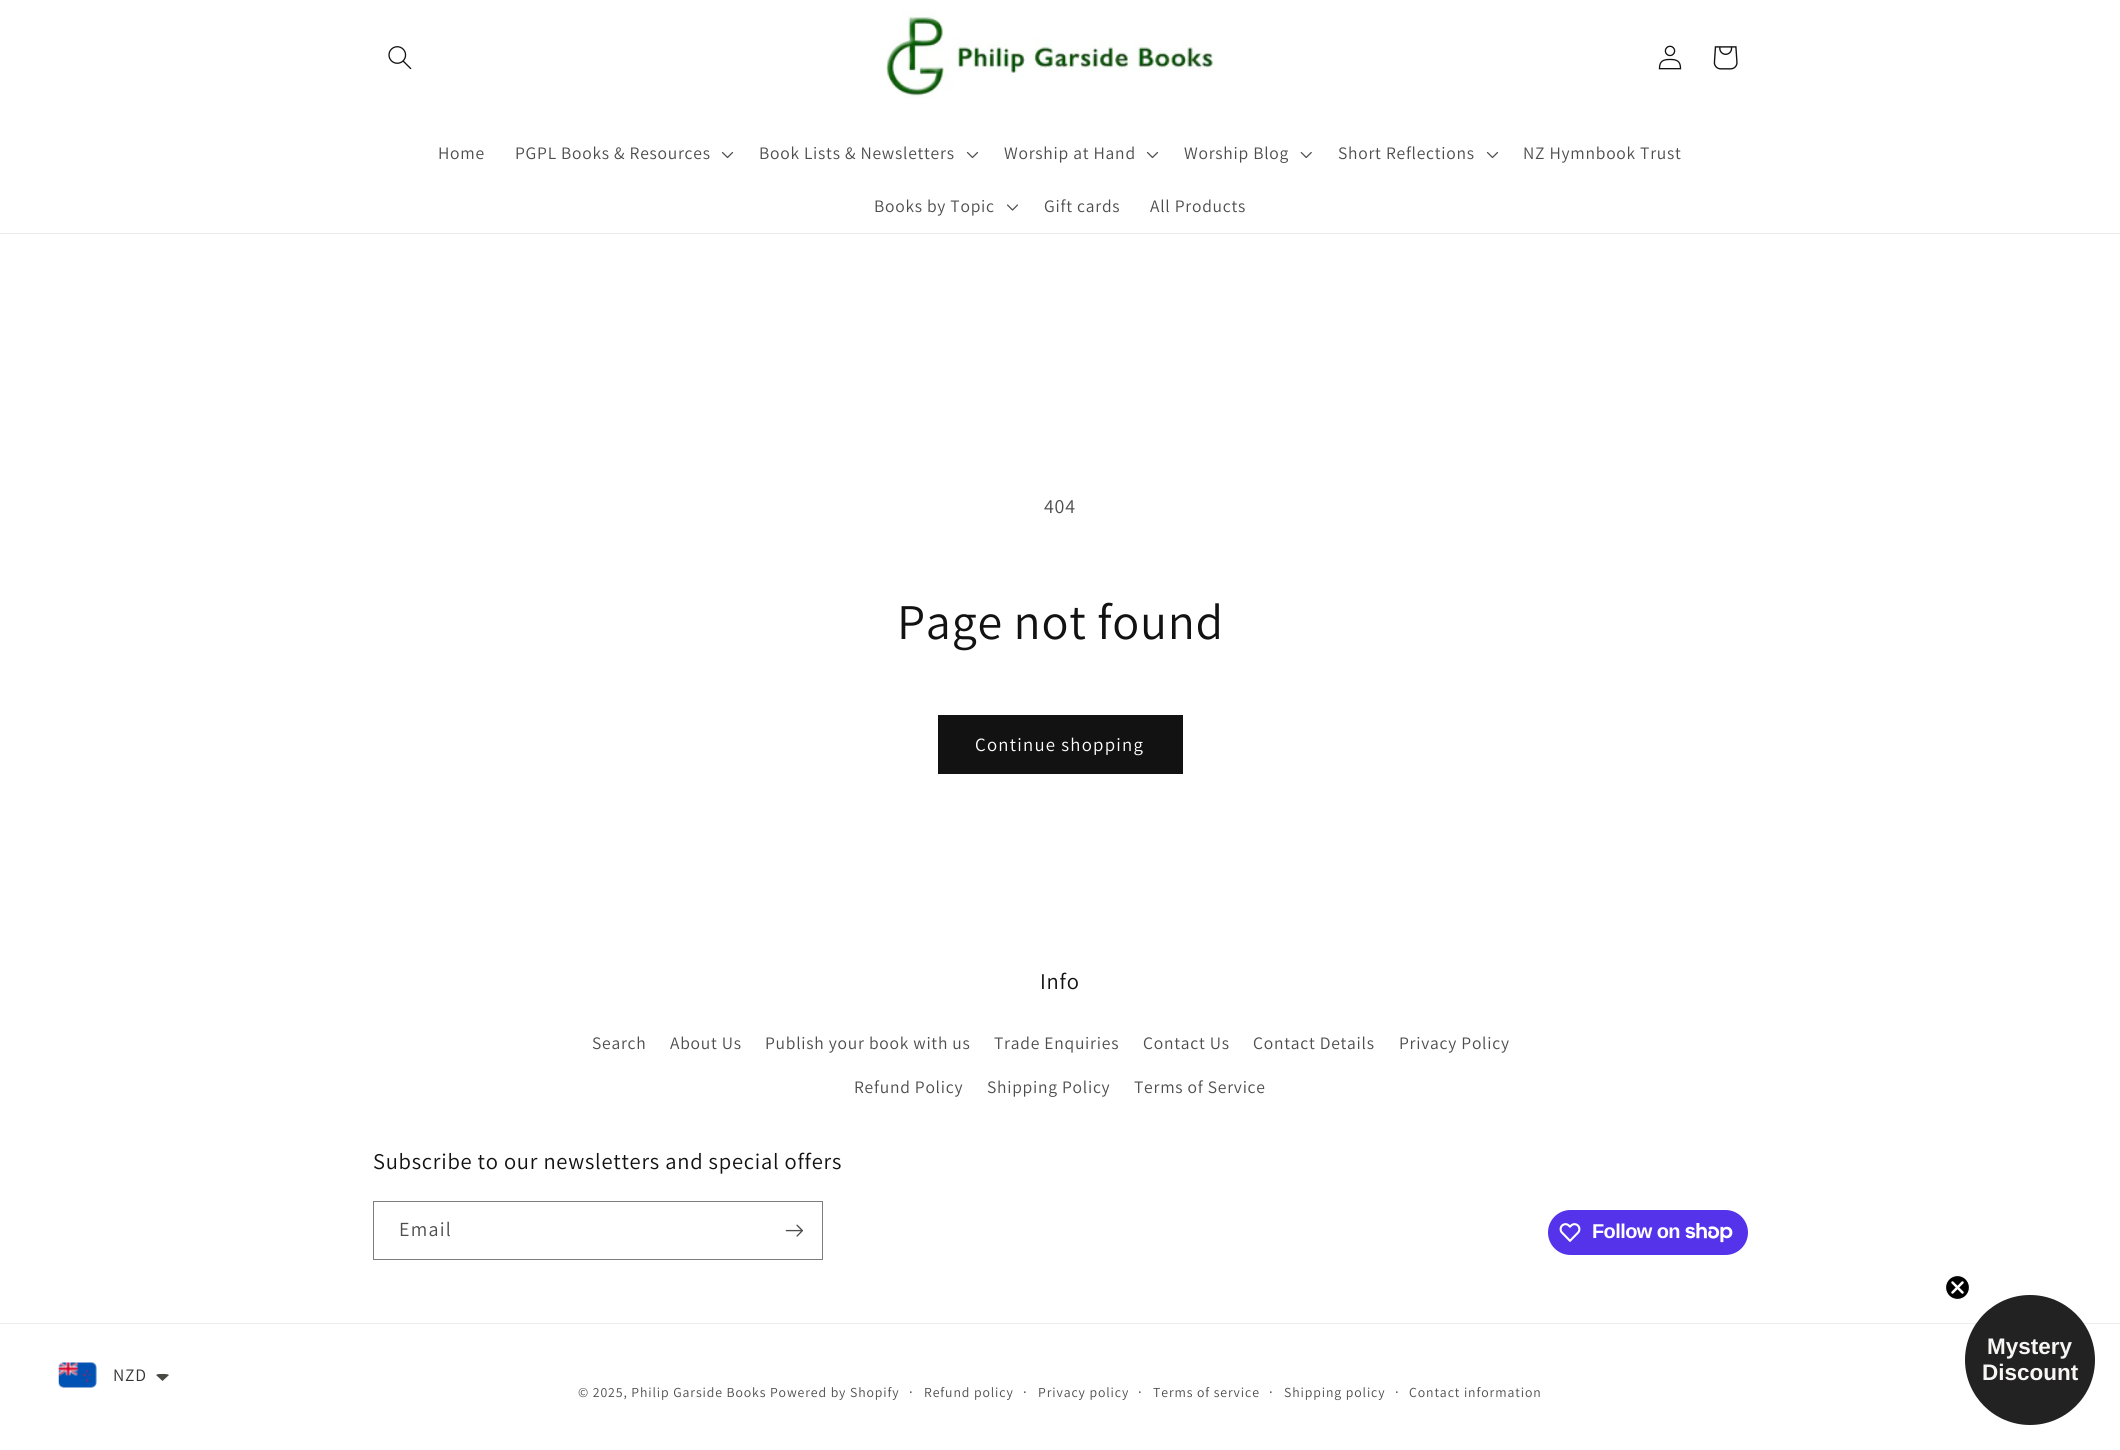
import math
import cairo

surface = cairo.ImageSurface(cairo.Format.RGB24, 2120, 1450)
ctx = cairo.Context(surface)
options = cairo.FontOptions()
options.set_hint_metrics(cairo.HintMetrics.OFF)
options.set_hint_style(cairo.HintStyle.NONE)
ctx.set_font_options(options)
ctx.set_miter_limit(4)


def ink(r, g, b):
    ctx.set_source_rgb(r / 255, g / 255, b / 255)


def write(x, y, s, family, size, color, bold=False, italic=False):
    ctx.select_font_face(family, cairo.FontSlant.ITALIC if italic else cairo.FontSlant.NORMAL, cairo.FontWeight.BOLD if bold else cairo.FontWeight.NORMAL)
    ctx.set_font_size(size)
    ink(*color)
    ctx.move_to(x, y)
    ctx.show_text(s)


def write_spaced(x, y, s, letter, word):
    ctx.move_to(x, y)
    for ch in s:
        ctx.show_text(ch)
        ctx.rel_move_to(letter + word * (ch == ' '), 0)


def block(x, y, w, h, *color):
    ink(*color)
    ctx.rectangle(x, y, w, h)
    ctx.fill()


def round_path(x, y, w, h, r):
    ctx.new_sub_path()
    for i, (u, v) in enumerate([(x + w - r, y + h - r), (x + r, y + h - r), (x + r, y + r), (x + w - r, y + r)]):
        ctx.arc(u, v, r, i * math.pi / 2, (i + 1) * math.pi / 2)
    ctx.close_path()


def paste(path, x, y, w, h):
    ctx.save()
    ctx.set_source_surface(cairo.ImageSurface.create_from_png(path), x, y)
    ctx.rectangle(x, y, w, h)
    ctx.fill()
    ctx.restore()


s1 = dict(family="Liberation Sans", size=22.5, color=(248, 245, 245), bold=True)

ink(255, 255, 255)
ctx.paint()
block(0, 233, 2120, 1, 236, 236, 236)
paste("pic1.png", 388, 46, 24, 24)
paste("pic2.png", 885, 10, 329, 89)
paste("pic3.png", 1658, 45, 24, 25)
paste("pic4.png", 1713, 46, 25, 24)
ctx.select_font_face("Assistant")
ctx.set_font_size(17.5)
ink(77, 77, 77)
write_spaced(438, 159, "Home", 0.75, 0)
write_spaced(515, 159, "PGPL Books & Resources", 0.75, 0)
paste("pic5.png", 721, 151, 13, 8)
write_spaced(759, 159, "Book Lists & Newsletters", 0.75, 0)
paste("pic5.png", 966, 151, 13, 8)
write_spaced(1004, 159, "Worship at Hand", 0.75, 0)
paste("pic5.png", 1146, 151, 13, 8)
write_spaced(1184, 159, "Worship Blog", 0.75, 0)
paste("pic6.png", 1300, 151, 12, 8)
write_spaced(1338, 159, "Short Reflections", 0.75, 0)
paste("pic5.png", 1486, 151, 13, 8)
write_spaced(1523, 159, "NZ Hymnbook Trust", 0.75, 0)
write_spaced(874, 212, "Books by Topic", 0.75, 0)
paste("pic7.png", 1007, 204, 11, 7)
write_spaced(1044, 212, "Gift cards", 0.75, 0)
write_spaced(1150, 212, "All Products", 0.75, 0)
ctx.set_font_size(20)
write_spaced(1044, 513, "404", 0.75, 0)
ctx.set_font_size(50)
ink(18, 18, 18)
write_spaced(897, 639, "Page not found", 0.75, 0)
block(938, 715, 245, 59, 18, 18, 18)
ctx.set_font_size(18.75)
ink(255, 255, 255)
write_spaced(975, 751, "Continue shopping", 1.25, 0)
paste("pic8.png", 58, 1362, 39, 26)
ctx.set_font_size(17.5)
ink(51, 51, 51)
write_spaced(113, 1381, "NZD", 0.75, 0)
ink(71, 73, 66)
ctx.new_path()
ctx.move_to(159, 1374)
ctx.curve_to(161.5, 1374, 167, 1373.5, 169, 1375)
ctx.line_to(162.5, 1381)
ctx.line_to(156, 1375)
ctx.curve_to(157, 1374.5, 158, 1374, 159, 1374)
ctx.close_path()
ctx.fill()
ctx.set_font_size(22.5)
ink(18, 18, 18)
write_spaced(1040, 989, "Info", 0.75, 0)
ctx.set_font_size(17.5)
ink(77, 77, 77)
write_spaced(592, 1049, "Search", 0.75, 0)
write_spaced(670, 1049, "About Us", 0.75, 0)
write_spaced(765, 1049, "Publish your book with us", 0.75, 0)
write_spaced(994, 1049, "Trade Enquiries", 0.75, 0)
write_spaced(1143, 1049, "Contact Us", 0.75, 0)
write_spaced(1253, 1049, "Contact Details", 0.75, 0)
write_spaced(1399, 1049, "Privacy Policy", 0.75, 0)
write_spaced(854, 1093, "Refund Policy", 0.75, 0)
write_spaced(987, 1093, "Shipping Policy", 0.75, 0)
write_spaced(1134, 1093, "Terms of Service", 0.75, 0)
ctx.set_font_size(22.5)
ink(18, 18, 18)
write_spaced(373, 1169, "Subscribe to our newsletters and special offers", 0.75, 0)
ctx.rectangle(373.5, 1201.5, 449, 58)
ink(125, 125, 125)
ctx.set_line_width(1)
ctx.stroke()
ctx.set_font_size(20)
ink(77, 77, 77)
write_spaced(399, 1236, "Email", 1.25, 0)
paste("pic9.png", 785, 1224, 18, 13)
ink(84, 51, 235)
round_path(1548, 1210, 200, 45, 22.5)
ctx.fill()
paste("pic10.png", 1559, 1223, 22, 19)
ctx.select_font_face("Liberation Sans", cairo.FontSlant.NORMAL, cairo.FontWeight.BOLD)
ink(255, 255, 255)
write_spaced(1592, 1238, "Follow on", -0.6, 0)
paste("pic11.png", 1685, 1223, 48, 20)
block(0, 1323, 2120, 1, 236, 236, 236)
ctx.select_font_face("Assistant")
ctx.set_font_size(13.75)
ink(77, 77, 77)
write_spaced(578, 1397, "© 2025, Philip Garside Books Powered by Shopify", 0.9, 0)
ctx.set_font_size(15)
write_spaced(909, 1397, "·", 0.9, 0)
ctx.set_font_size(13.75)
write_spaced(924, 1397, "Refund policy", 0.9, 0)
ctx.set_font_size(15)
write_spaced(1023, 1397, "·", 0.9, 0)
ctx.set_font_size(13.75)
write_spaced(1038, 1397, "Privacy policy", 0.9, 0)
ctx.set_font_size(15)
write_spaced(1138, 1397, "·", 0.9, 0)
ctx.set_font_size(13.75)
write_spaced(1153, 1397, "Terms of service", 0.9, 0)
ctx.set_font_size(15)
write_spaced(1269, 1397, "·", 0.9, 0)
ctx.set_font_size(13.75)
write_spaced(1284, 1397, "Shipping policy", 0.9, 0)
ctx.set_font_size(15)
write_spaced(1395, 1397, "·", 0.9, 0)
ctx.set_font_size(13.75)
write_spaced(1409, 1397, "Contact information", 0.9, 0)
ink(34, 34, 34)
ctx.new_path()
ctx.arc(2030, 1360, 65, 0, 2 * math.pi)
ctx.fill()
ink(0, 0, 0)
ctx.arc(1957.5, 1287.5, 12, 0, 2 * math.pi)
ctx.fill_preserve()
ink(255, 255, 255)
ctx.set_line_width(1.2)
ctx.stroke()
ctx.new_path()
ctx.move_to(1952.5, 1282.5)
ctx.line_to(1962.5, 1292.5)
ctx.move_to(1952.5, 1292.5)
ctx.line_to(1962.5, 1282.5)
ctx.close_path()
ctx.set_line_width(2.5)
ctx.set_line_cap(cairo.LineCap.ROUND)
ctx.set_line_join(cairo.LineJoin.ROUND)
ctx.stroke()
write(1987, 1354, "Mystery", **s1)
write(1982, 1380, "Discount", **s1)
surface.write_to_png("screenshot.png")
